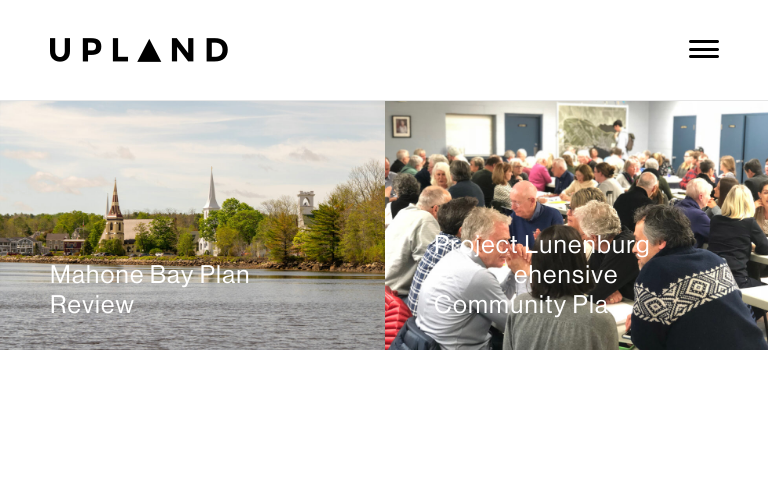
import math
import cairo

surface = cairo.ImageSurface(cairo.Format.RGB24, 768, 489)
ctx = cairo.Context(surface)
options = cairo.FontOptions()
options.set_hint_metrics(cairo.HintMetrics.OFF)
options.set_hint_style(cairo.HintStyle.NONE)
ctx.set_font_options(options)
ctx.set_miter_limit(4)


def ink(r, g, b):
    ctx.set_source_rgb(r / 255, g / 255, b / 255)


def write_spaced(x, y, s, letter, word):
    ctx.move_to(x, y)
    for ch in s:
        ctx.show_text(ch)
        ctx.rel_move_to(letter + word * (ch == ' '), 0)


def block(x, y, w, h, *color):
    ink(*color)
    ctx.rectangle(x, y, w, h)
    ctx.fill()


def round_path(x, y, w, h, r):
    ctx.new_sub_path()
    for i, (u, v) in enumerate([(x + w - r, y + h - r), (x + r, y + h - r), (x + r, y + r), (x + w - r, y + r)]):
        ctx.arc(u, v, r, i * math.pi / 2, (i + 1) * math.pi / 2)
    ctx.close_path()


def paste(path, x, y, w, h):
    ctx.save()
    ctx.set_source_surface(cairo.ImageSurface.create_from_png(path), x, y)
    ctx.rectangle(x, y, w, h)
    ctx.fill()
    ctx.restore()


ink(255, 255, 255)
ctx.paint()
block(0, 100, 768, 1, 230, 230, 230)
paste("pic1.png", 50, 38, 178, 24)
ink(0, 0, 0)
round_path(689, 40, 30, 3, 1.5)
ctx.fill()
round_path(689, 48, 30, 3, 1.5)
ctx.fill()
round_path(689, 55, 30, 3, 1.5)
ctx.fill()
paste("pic2.png", 0, 101, 385, 249)
ctx.select_font_face("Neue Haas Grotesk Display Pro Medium")
ctx.set_font_size(25)
ink(255, 255, 255)
write_spaced(50, 283, "Mahone Bay Plan", 1.25, 0)
write_spaced(50, 313, "Review", 1.25, 0)
paste("pic3.png", 385, 101, 383, 249)
write_spaced(434, 253, "Project Lunenburg", 1.25, 0)
write_spaced(514, 283, "ehensive", 1.25, 0)
write_spaced(434, 313, "Community Pla", 1.25, 0)
surface.write_to_png("screenshot.png")
